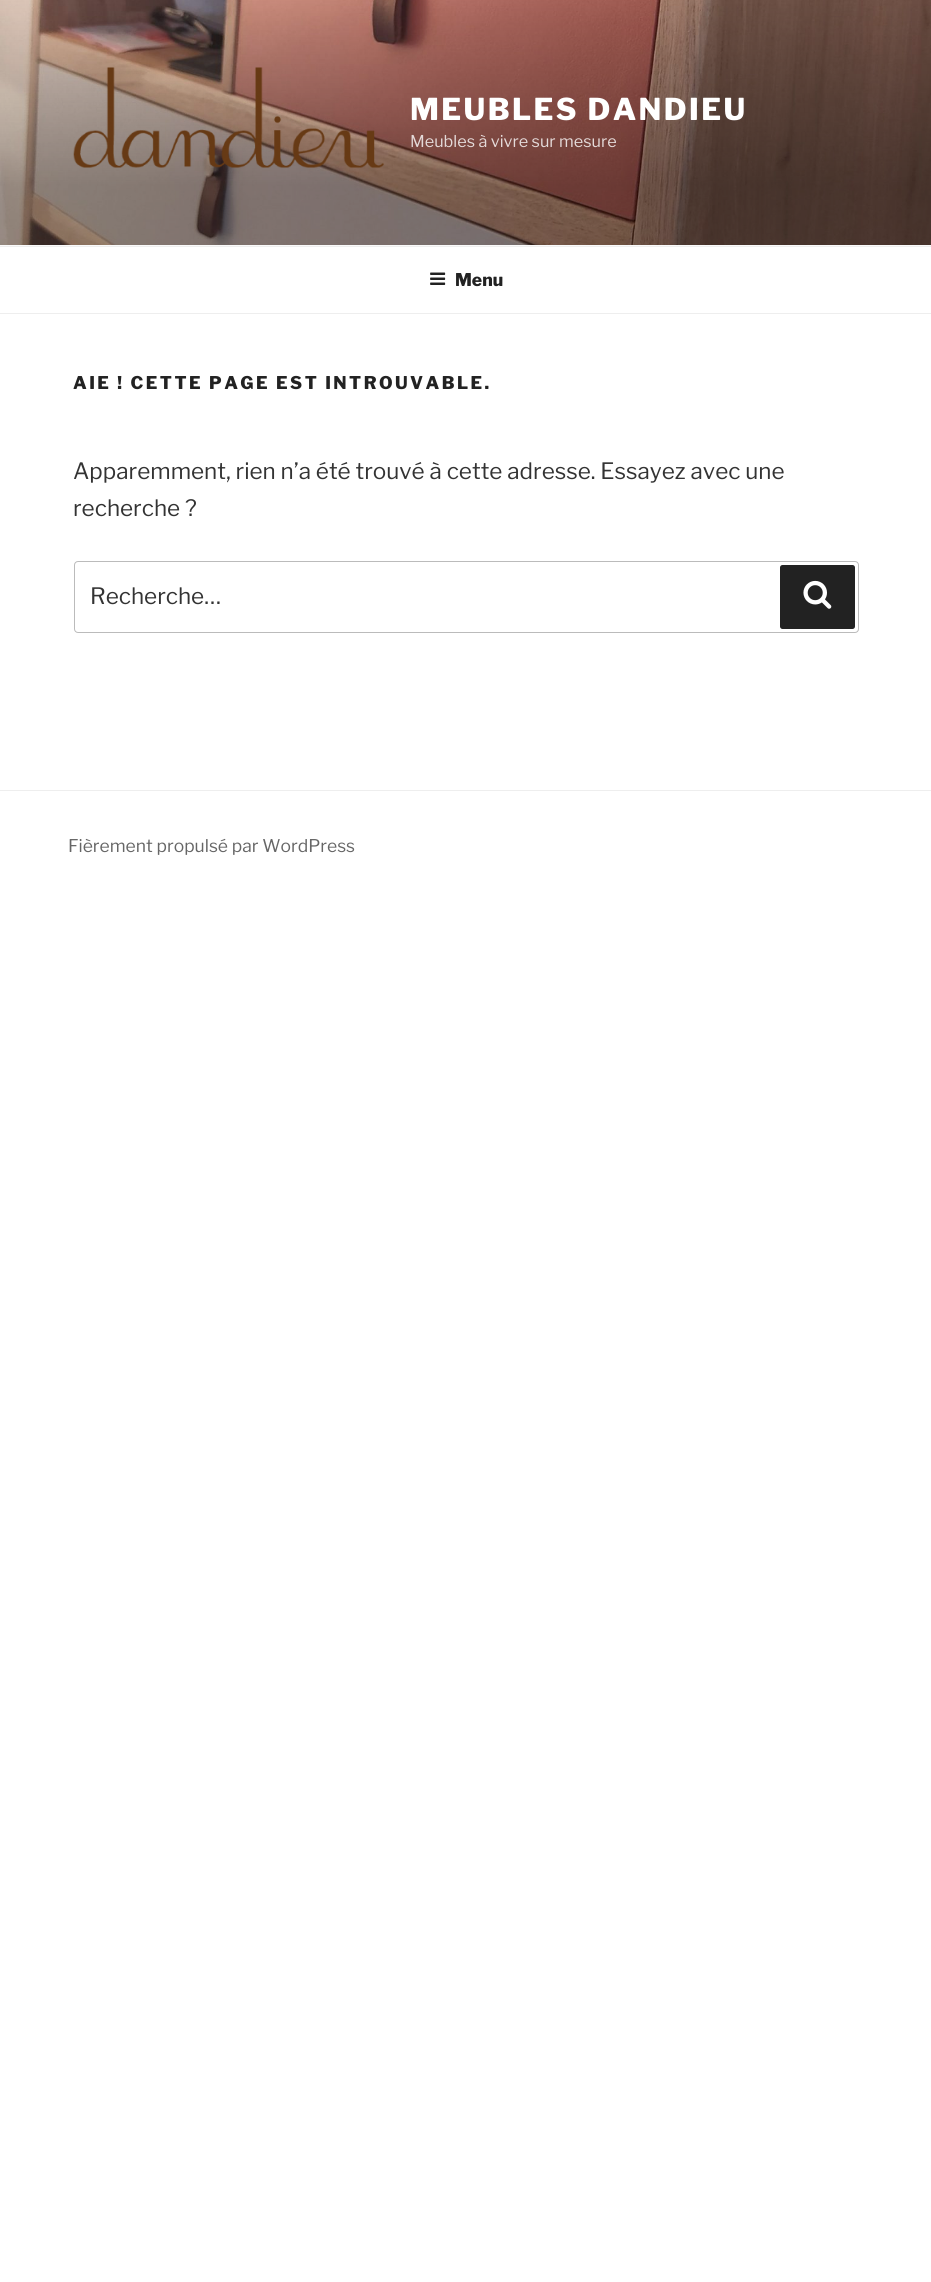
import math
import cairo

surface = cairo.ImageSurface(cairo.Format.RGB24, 931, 2282)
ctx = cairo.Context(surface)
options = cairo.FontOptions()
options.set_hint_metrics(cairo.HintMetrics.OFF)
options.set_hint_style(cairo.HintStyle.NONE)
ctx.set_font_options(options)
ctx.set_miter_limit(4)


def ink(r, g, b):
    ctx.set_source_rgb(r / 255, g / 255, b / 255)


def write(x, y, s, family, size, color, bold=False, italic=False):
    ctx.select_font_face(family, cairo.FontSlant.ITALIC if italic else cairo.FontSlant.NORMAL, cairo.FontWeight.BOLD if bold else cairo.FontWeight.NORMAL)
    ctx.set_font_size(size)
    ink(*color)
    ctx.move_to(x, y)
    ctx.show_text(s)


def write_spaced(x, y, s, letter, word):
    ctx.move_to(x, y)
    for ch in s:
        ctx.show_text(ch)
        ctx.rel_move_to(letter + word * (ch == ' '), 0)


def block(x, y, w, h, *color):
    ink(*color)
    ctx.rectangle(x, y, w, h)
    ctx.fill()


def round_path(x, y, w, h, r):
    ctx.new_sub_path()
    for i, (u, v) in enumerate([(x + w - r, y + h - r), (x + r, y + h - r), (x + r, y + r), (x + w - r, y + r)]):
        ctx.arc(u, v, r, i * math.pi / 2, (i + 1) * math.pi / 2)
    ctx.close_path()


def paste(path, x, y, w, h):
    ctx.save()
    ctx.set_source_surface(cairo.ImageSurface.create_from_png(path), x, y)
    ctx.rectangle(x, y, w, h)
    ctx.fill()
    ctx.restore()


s1 = dict(family="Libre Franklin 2 Thin", size=16.25, color=(228, 218, 217))
s2 = dict(family="Libre Franklin Thin", size=17.5, color=(34, 34, 34))
s3 = dict(family="Libre Franklin 2 Thin", size=22.5, color=(51, 51, 51))
s4 = dict(family="Libre Franklin 2 Thin", size=17.5, color=(102, 102, 102))

ink(255, 255, 255)
ctx.paint()
block(0, 245, 931, 1, 250, 250, 250)
paste("pic1.png", 0, 0, 931, 245)
paste("pic2.png", 73, 67, 311, 101)
ctx.select_font_face("Libre Franklin Thin")
ctx.set_font_size(30)
ink(255, 255, 255)
write_spaced(410, 120, "MEUBLES DANDIEU", 2.4, 0)
write(410, 147, "Meubles à vivre sur mesure", **s1)
block(0, 246, 931, 1, 238, 238, 238)
block(0, 313, 931, 1, 238, 238, 238)
paste("pic3.png", 430, 272, 16, 13)
write(455, 286, "Menu", **s2)
write_spaced(73, 389, "AIE ! CETTE PAGE EST INTROUVABLE.", 2.45, 0)
write(73, 479, "Apparemment, rien n’a été trouvé à cette adresse. Essayez avec une", **s3)
write(73, 516, "recherche ?", **s3)
round_path(74.5, 561.5, 784, 71, 3.5)
ink(187, 187, 187)
ctx.set_line_width(1)
ctx.stroke()
write(90, 604, "Recherche…", **s3)
ink(34, 34, 34)
round_path(780, 565, 75, 64, 2.5)
ctx.fill()
paste("pic4.png", 803, 580, 29, 29)
block(0, 790, 931, 1, 238, 238, 238)
write(68, 852, "Fièrement propulsé par WordPress", **s4)
surface.write_to_png("screenshot.png")
